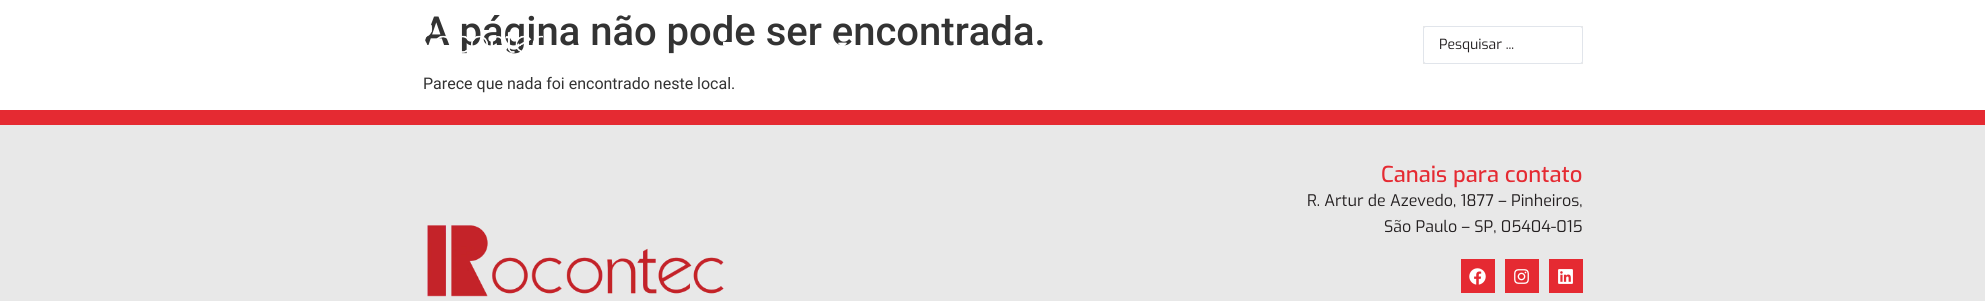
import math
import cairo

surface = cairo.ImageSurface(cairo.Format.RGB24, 1985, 301)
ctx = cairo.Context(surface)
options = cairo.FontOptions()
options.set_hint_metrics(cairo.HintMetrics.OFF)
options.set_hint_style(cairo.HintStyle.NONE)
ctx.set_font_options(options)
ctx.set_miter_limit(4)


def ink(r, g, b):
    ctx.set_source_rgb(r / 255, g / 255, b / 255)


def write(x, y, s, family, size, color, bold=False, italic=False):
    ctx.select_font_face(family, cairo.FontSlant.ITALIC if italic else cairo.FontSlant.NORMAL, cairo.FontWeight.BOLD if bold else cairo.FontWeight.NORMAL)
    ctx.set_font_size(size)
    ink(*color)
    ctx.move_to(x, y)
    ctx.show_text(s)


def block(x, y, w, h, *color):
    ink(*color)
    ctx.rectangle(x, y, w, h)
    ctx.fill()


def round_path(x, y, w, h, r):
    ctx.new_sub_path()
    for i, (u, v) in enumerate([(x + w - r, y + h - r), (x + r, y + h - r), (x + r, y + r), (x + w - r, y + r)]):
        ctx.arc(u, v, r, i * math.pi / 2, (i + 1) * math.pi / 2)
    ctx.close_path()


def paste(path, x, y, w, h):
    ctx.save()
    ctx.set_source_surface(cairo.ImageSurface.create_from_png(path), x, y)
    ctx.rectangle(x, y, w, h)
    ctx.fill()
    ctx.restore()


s1 = dict(family="Roboto Medium", size=40, color=(51, 51, 51))
s2 = dict(family="Roboto", size=16, color=(51, 51, 51))
s3 = dict(family="Exo", size=14, color=(35, 31, 32))
s4 = dict(family="Exo Medium", size=22, color=(229, 42, 50))
s5 = dict(family="Exo", size=16, color=(35, 31, 32))

ink(255, 255, 255)
ctx.paint()
write(423, 45, "A página não pode ser encontrada.", **s1)
write(423, 89, "Parece que nada foi encontrado neste local.", **s2)
paste("pic1.png", 422, 23, 121, 30)
block(723, 42, 9, 3, 255, 255, 255)
paste("pic2.png", 838, 42, 9, 4)
block(1423, 26, 160, 38, 232, 232, 232)
ink(255, 255, 255)
round_path(1423.5, 26.5, 159, 37, 2.5)
ctx.fill_preserve()
ink(225, 229, 235)
ctx.set_line_width(1)
ctx.stroke()
write(1439, 49, "Pesquisar ...", **s3)
block(0, 125, 1985, 176, 232, 232, 232)
block(0, 110, 1985, 15, 229, 42, 50)
write(1381, 182, "Canais para contato", **s4)
write(1307, 206, "R. Artur de Azevedo, 1877 – Pinheiros,", **s5)
write(1384, 232, "São Paulo – SP, 05404-015", **s5)
block(1461, 259, 34, 34, 229, 42, 50)
paste("pic3.png", 1469, 268, 17, 17)
block(1505, 259, 34, 34, 229, 42, 50)
paste("pic4.png", 1514, 269, 15, 15)
block(1549, 259, 34, 34, 229, 42, 50)
paste("pic5.png", 1558, 269, 15, 15)
paste("pic6.png", 427, 225, 297, 72)
surface.write_to_png("screenshot.png")
